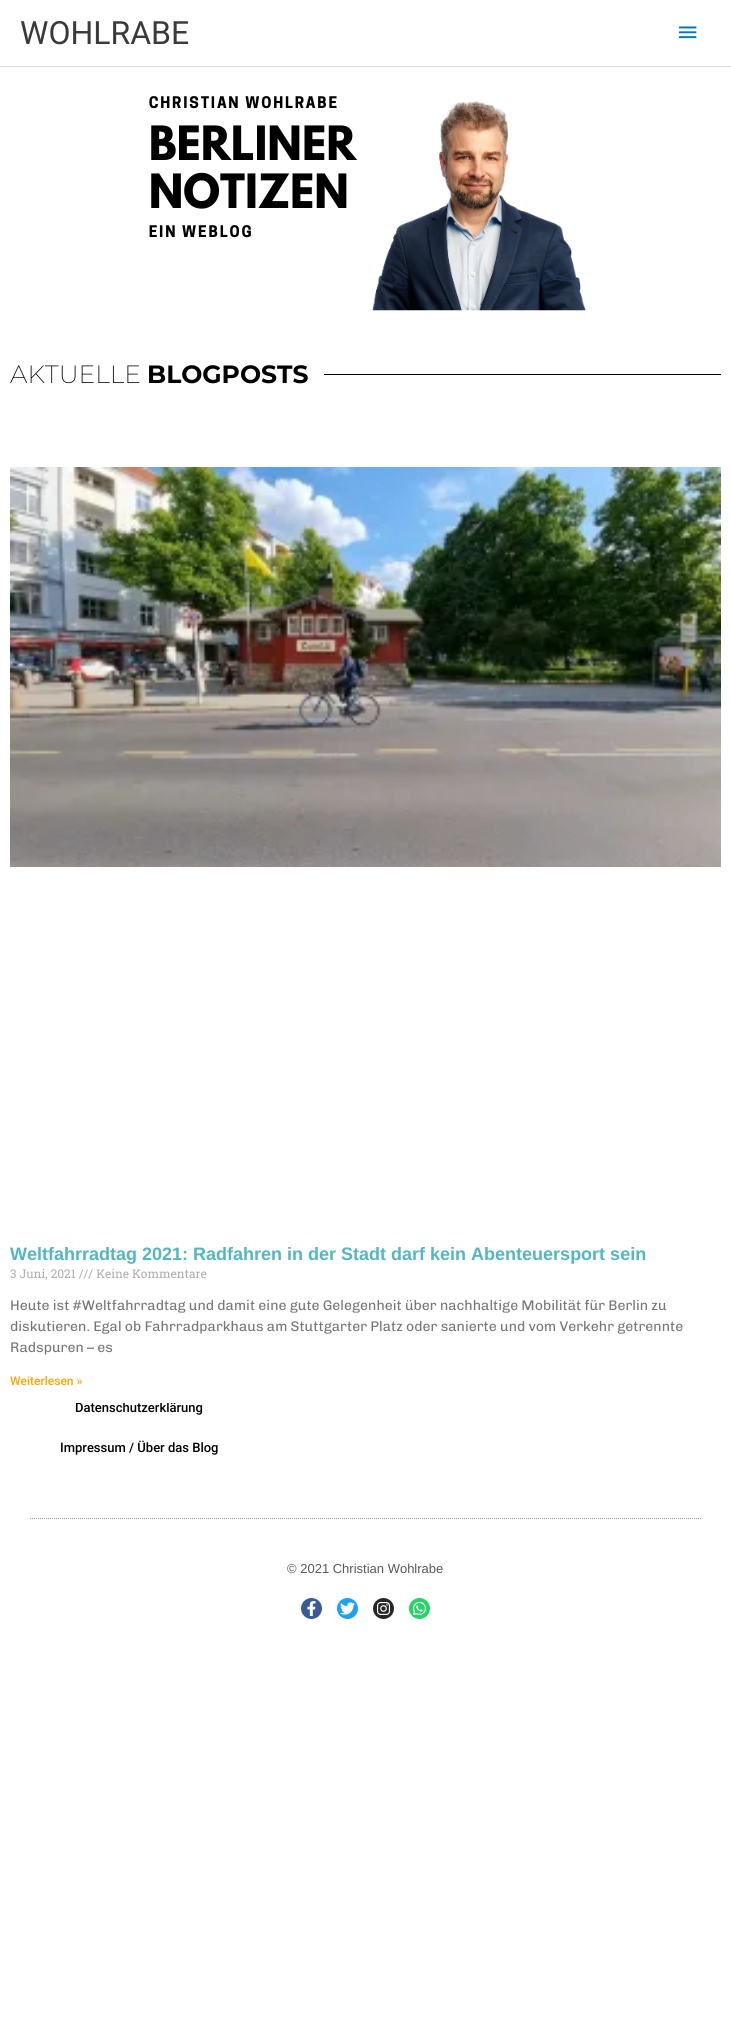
import math
import cairo

surface = cairo.ImageSurface(cairo.Format.RGB24, 731, 2031)
ctx = cairo.Context(surface)
options = cairo.FontOptions()
options.set_hint_metrics(cairo.HintMetrics.OFF)
options.set_hint_style(cairo.HintStyle.NONE)
ctx.set_font_options(options)
ctx.set_miter_limit(4)


def ink(r, g, b):
    ctx.set_source_rgb(r / 255, g / 255, b / 255)


def write(x, y, s, family, size, color, bold=False, italic=False):
    ctx.select_font_face(family, cairo.FontSlant.ITALIC if italic else cairo.FontSlant.NORMAL, cairo.FontWeight.BOLD if bold else cairo.FontWeight.NORMAL)
    ctx.set_font_size(size)
    ink(*color)
    ctx.move_to(x, y)
    ctx.show_text(s)


def block(x, y, w, h, *color):
    ink(*color)
    ctx.rectangle(x, y, w, h)
    ctx.fill()


def paste(path, x, y, w, h):
    ctx.save()
    ctx.set_source_surface(cairo.ImageSurface.create_from_png(path), x, y)
    ctx.rectangle(x, y, w, h)
    ctx.fill()
    ctx.restore()


s1 = dict(family="Roboto", size=32, color=(58, 58, 58))
s2 = dict(family="Montserrat ExtraLight", size=25, color=(0, 0, 0))
s3 = dict(family="Montserrat", size=25, color=(0, 0, 0), bold=True)
s4 = dict(family="Liberation Sans", size=18, color=(82, 183, 193), bold=True)
s5 = dict(family="Roboto Slab", size=12, color=(173, 173, 173))
s6 = dict(family="Chivo", size=14, color=(119, 119, 119))
s7 = dict(family="Roboto Medium", size=12, color=(255, 166, 0))
s8 = dict(family="Roboto Medium", size=13, color=(0, 0, 0))
s9 = dict(family="Liberation Sans", size=13, color=(84, 89, 95))

ink(255, 255, 255)
ctx.paint()
block(0, 66, 731, 1, 221, 221, 221)
write(20, 44, "WOHLRABE", **s1)
paste("pic1.png", 678, 26, 19, 13)
paste("pic2.png", 149, 96, 437, 215)
write(10, 383, "AKTUELLE", **s2)
write(147, 383, "BLOGPOSTS", **s3)
block(324, 374, 397, 1, 0, 0, 0)
paste("pic3.png", 10, 467, 711, 400)
write(10, 1260, "Weltfahrradtag 2021: Radfahren in der Stadt darf kein Abenteuersport sein", **s4)
write(10, 1278, "3 Juni, 2021 /// Keine Kommentare", **s5)
write(10, 1310, "Heute ist #Weltfahrradtag und damit eine gute Gelegenheit über nachhaltige Mobilität für Berlin zu", **s6)
write(10, 1331, "diskutieren. Egal ob Fahrradparkhaus am Stuttgarter Platz oder sanierte und vom Verkehr getrennte", **s6)
write(10, 1352, "Radspuren – es", **s6)
write(10, 1385, "Weiterlesen »", **s7)
ctx.new_path()
ctx.move_to(30, 1518.5)
ctx.line_to(701, 1518.5)
ink(155, 155, 155)
ctx.set_line_width(1)
ctx.set_dash([1, 1])
ctx.stroke()
ctx.save()
ctx.rectangle(40, 1403, 198, 65)
ctx.clip()
write(75, 1412, "Datenschutzerklärung", **s8)
ctx.restore()
write(60, 1452, "Impressum / Über das Blog", **s8)
write(287, 1573, "© 2021 Christian Wohlrabe", **s9)
ink(59, 89, 152)
ctx.new_path()
ctx.arc(311.5, 1608.5, 10.5, 0, 2 * math.pi)
ctx.fill()
paste("pic4.png", 307, 1601, 9, 15)
ink(29, 161, 242)
ctx.arc(347.5, 1608.5, 10.5, 0, 2 * math.pi)
ctx.fill()
paste("pic5.png", 340, 1602, 15, 13)
ink(38, 38, 38)
ctx.arc(383.5, 1608.5, 10.5, 0, 2 * math.pi)
ctx.fill()
paste("pic6.png", 377, 1602, 14, 13)
ink(37, 211, 102)
ctx.arc(419.5, 1608.5, 10.5, 0, 2 * math.pi)
ctx.fill()
paste("pic7.png", 413, 1601, 14, 14)
surface.write_to_png("screenshot.png")
